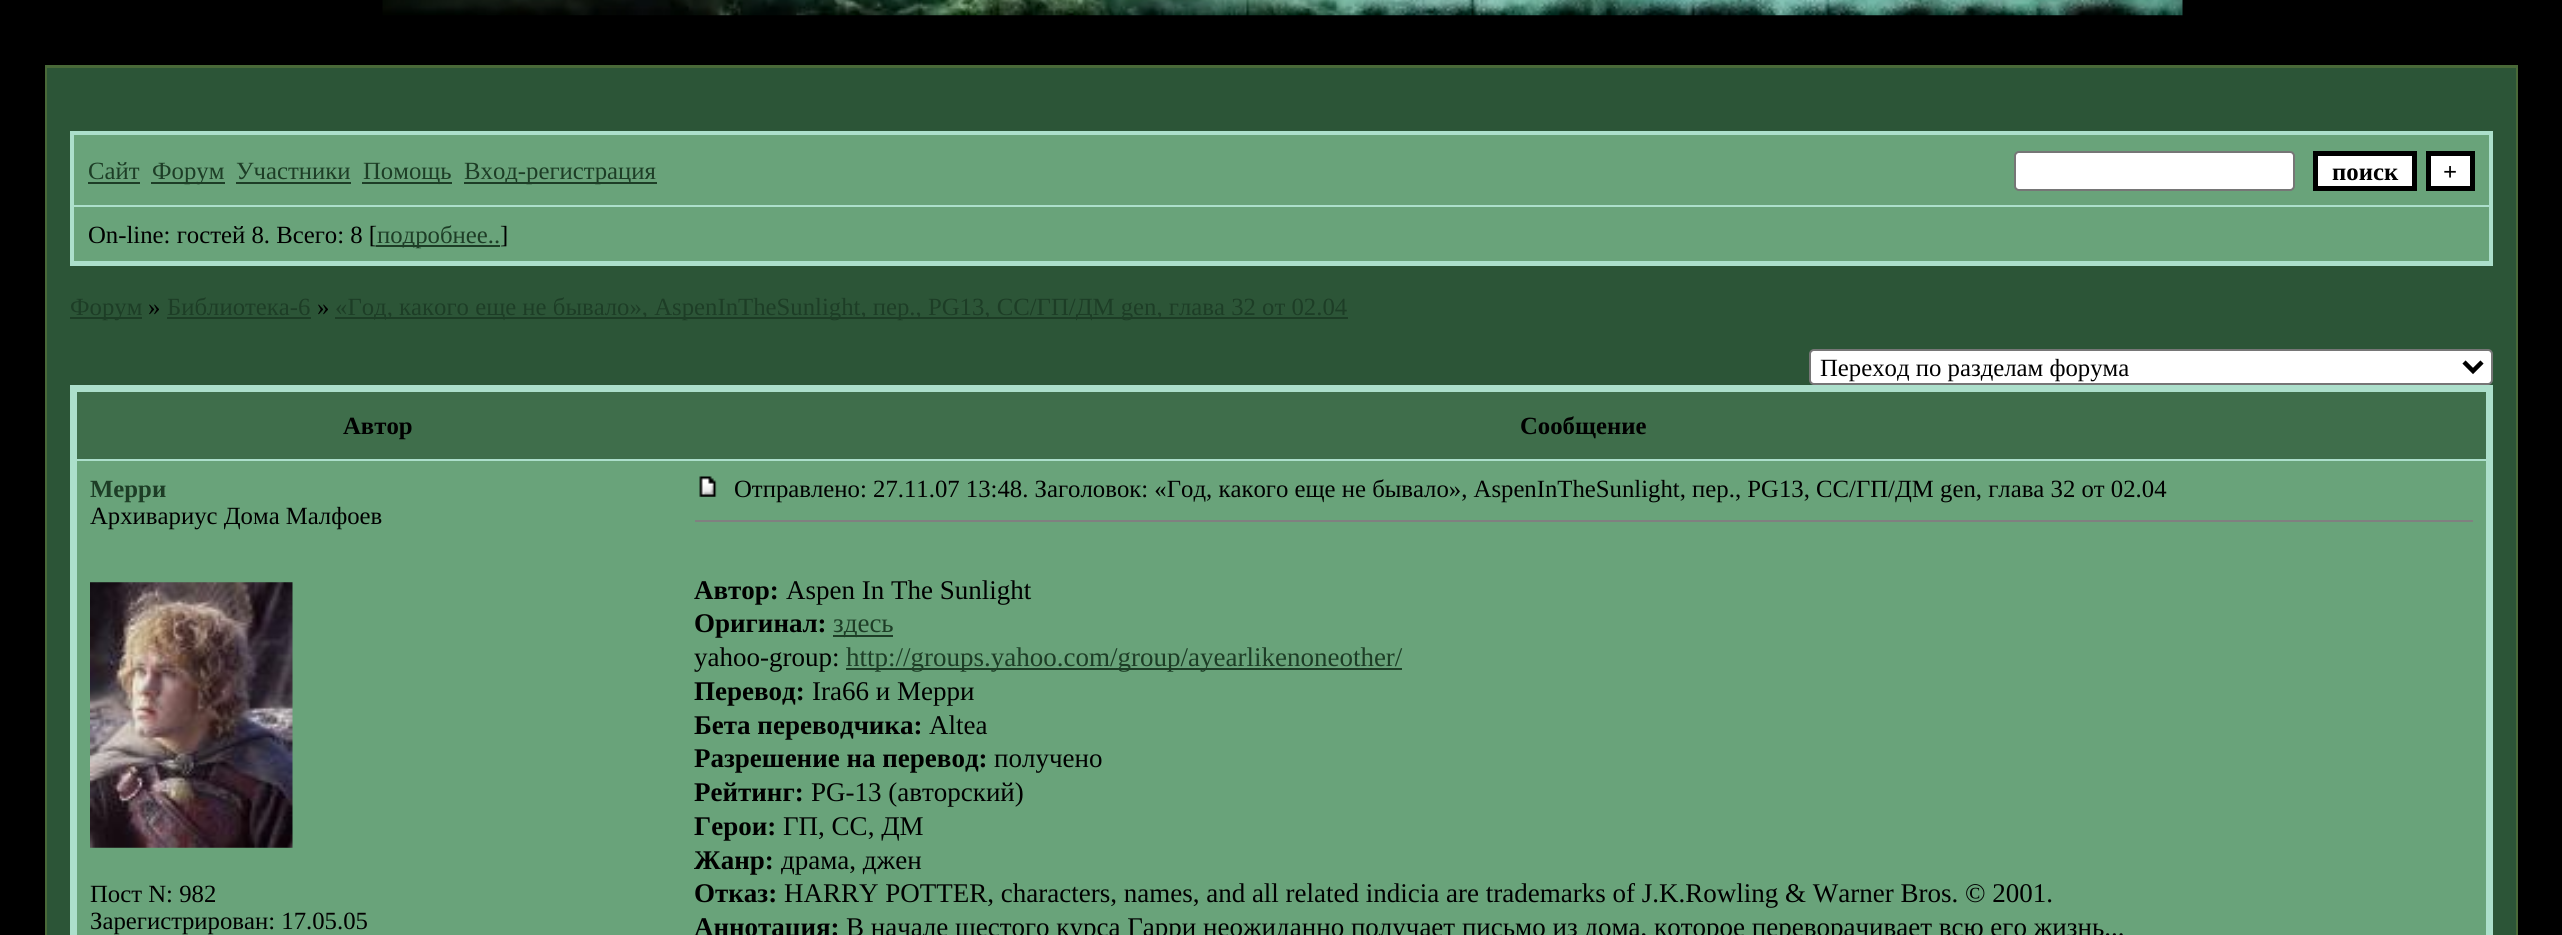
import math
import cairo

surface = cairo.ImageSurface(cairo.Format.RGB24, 2562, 935)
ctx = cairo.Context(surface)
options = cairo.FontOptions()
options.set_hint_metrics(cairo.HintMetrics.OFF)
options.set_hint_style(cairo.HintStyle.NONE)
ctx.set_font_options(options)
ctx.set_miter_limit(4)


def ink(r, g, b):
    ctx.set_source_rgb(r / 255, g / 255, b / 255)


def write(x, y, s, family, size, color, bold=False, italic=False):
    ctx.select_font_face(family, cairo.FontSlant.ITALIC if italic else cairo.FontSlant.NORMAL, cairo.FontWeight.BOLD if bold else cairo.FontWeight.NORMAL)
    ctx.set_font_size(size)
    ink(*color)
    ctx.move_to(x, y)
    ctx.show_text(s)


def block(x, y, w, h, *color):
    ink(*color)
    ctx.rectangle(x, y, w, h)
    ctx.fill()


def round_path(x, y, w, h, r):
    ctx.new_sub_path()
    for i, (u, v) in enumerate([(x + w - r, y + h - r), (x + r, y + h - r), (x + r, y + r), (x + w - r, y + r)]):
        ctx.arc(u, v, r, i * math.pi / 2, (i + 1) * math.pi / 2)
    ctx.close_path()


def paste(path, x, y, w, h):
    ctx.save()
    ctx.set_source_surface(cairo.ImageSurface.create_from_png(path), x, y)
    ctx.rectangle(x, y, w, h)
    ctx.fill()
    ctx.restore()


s1 = dict(family="Liberation Serif", size=24.75, color=(29, 61, 38))
s2 = dict(family="Liberation Serif", size=24.75, color=(0, 0, 0), bold=True)
s3 = dict(family="Liberation Serif", size=24.75, color=(0, 0, 0))
s4 = dict(family="Liberation Serif", size=24.75, color=(29, 61, 38), bold=True)
s5 = dict(family="Liberation Serif", size=27, color=(0, 0, 0), bold=True)
s6 = dict(family="Liberation Serif", size=27, color=(0, 0, 0))
s7 = dict(family="Liberation Serif", size=27, color=(29, 61, 38))

ink(0, 0, 0)
ctx.paint()
paste("pic1.png", 382, 0, 1801, 16)
block(45, 65, 2473, 870, 73, 105, 56)
block(47, 68, 2469, 867, 44, 85, 55)
block(70, 131, 2423, 135, 172, 223, 203)
block(74, 135, 2415, 70, 105, 163, 122)
write(88, 179, "Сайт", **s1)
block(88, 182, 52, 2, 29, 61, 38)
block(151, 182, 74, 2, 29, 61, 38)
write(152, 179, "Форум", **s1)
write(236, 179, "Участники", **s1)
block(236, 182, 115, 2, 29, 61, 38)
block(362, 182, 90, 2, 29, 61, 38)
write(363, 179, "Помощь", **s1)
block(464, 182, 193, 2, 29, 61, 38)
write(464, 179, "Вход-регистрация", **s1)
ink(255, 255, 255)
round_path(2015, 152, 279, 38, 4)
ctx.fill_preserve()
ink(118, 118, 118)
ctx.stroke()
ink(255, 255, 255)
ctx.rectangle(2315.5, 153.5, 99, 35)
ctx.fill_preserve()
ink(0, 0, 0)
ctx.set_line_width(5)
ctx.stroke()
write(2332, 180, "поиск", **s2)
ink(255, 255, 255)
ctx.rectangle(2428.5, 153.5, 44, 35)
ctx.fill_preserve()
ink(0, 0, 0)
ctx.stroke()
write(2443, 180, "+", **s2)
block(74, 207, 2415, 54, 105, 163, 122)
write(88, 243, "On-line: гостей 8. Всего: 8 [", **s3)
block(376, 245, 124, 2, 29, 61, 38)
write(377, 243, "подробнее..", **s1)
write(500, 243, "]", **s3)
block(70, 317, 72, 2, 29, 61, 38)
write(70, 315, "Форум", **s1)
write(148, 315, "»", **s3)
write(167, 315, "Библиотека-6", **s1)
block(167, 317, 144, 2, 29, 61, 38)
write(317, 315, "»", **s3)
block(335, 317, 1013, 2, 29, 61, 38)
write(335, 315, "«Год, какого еще не бывало», AspenInTheSunlight, пер., PG13, СС/ГП/ДМ gen, глава 32 от 02.04", **s1)
ink(255, 255, 255)
round_path(1810, 350, 682, 34, 4)
ctx.fill_preserve()
ink(118, 118, 118)
ctx.set_line_width(2)
ctx.stroke()
ctx.new_path()
ctx.move_to(2464, 362)
ctx.line_to(2473, 371)
ctx.line_to(2482, 362)
ink(0, 0, 0)
ctx.set_line_width(4.5)
ctx.stroke()
write(1820, 376, "Переход по разделам форума", **s3)
block(70, 385, 2423, 550, 172, 223, 203)
block(77, 392, 2409, 67, 63, 110, 75)
write(343, 434, "Автор", **s2)
write(1520, 434, "Сообщение", **s2)
block(77, 461, 2409, 474, 105, 163, 122)
write(90, 497, "Мерри", **s4)
write(90, 524, "Архивариус Дома Малфоев", **s3)
paste("pic2.png", 90, 582, 203, 266)
write(90, 902, "Пост N: 982", **s3)
write(90, 929, "Зарегистрирован: 17.05.05", **s3)
paste("pic3.png", 699, 476, 18, 21)
write(734, 497, "Отправлено: 27.11.07 13:48. Заголовок: «Год, какого еще не бывало», AspenInTheSunlight, пер., PG13, СС/ГП/ДМ gen, глава 32 от 02.04", **s3)
block(695, 520, 1778, 2, 128, 128, 128)
write(694, 599, "Автор:", **s5)
write(786, 599, "Aspen In The Sunlight", **s6)
write(694, 632, "Оригинал:", **s5)
block(833, 635, 60, 2, 29, 61, 38)
write(833, 632, "здесь", **s7)
write(694, 666, "yahoo-group:", **s6)
block(846, 668, 556, 2, 29, 61, 38)
write(846, 666, "http://groups.yahoo.com/group/ayearlikenoneother/", **s7)
write(694, 700, "Перевод:", **s5)
write(812, 700, "Ira66 и Мерри", **s6)
write(694, 734, "Бета переводчика:", **s5)
write(929, 734, "Altea", **s6)
write(694, 767, "Разрешение на перевод:", **s5)
write(994, 767, "получено", **s6)
write(694, 801, "Рейтинг:", **s5)
write(811, 801, "PG-13 (авторский)", **s6)
write(694, 835, "Герои:", **s5)
write(783, 835, "ГП, СС, ДМ", **s6)
write(694, 869, "Жанр:", **s5)
write(781, 869, "драма, джен", **s6)
write(694, 902, "Отказ:", **s5)
write(784, 902, "HARRY POTTER, characters, names, and all related indicia are trademarks of J.K.Rowling & Warner Bros. © 2001.", **s6)
write(694, 936, "Аннотация:", **s5)
write(846, 936, "В начале шестого курса Гарри неожиданно получает письмо из дома, которое переворачивает всю его жизнь...", **s6)
surface.write_to_png("screenshot.png")
